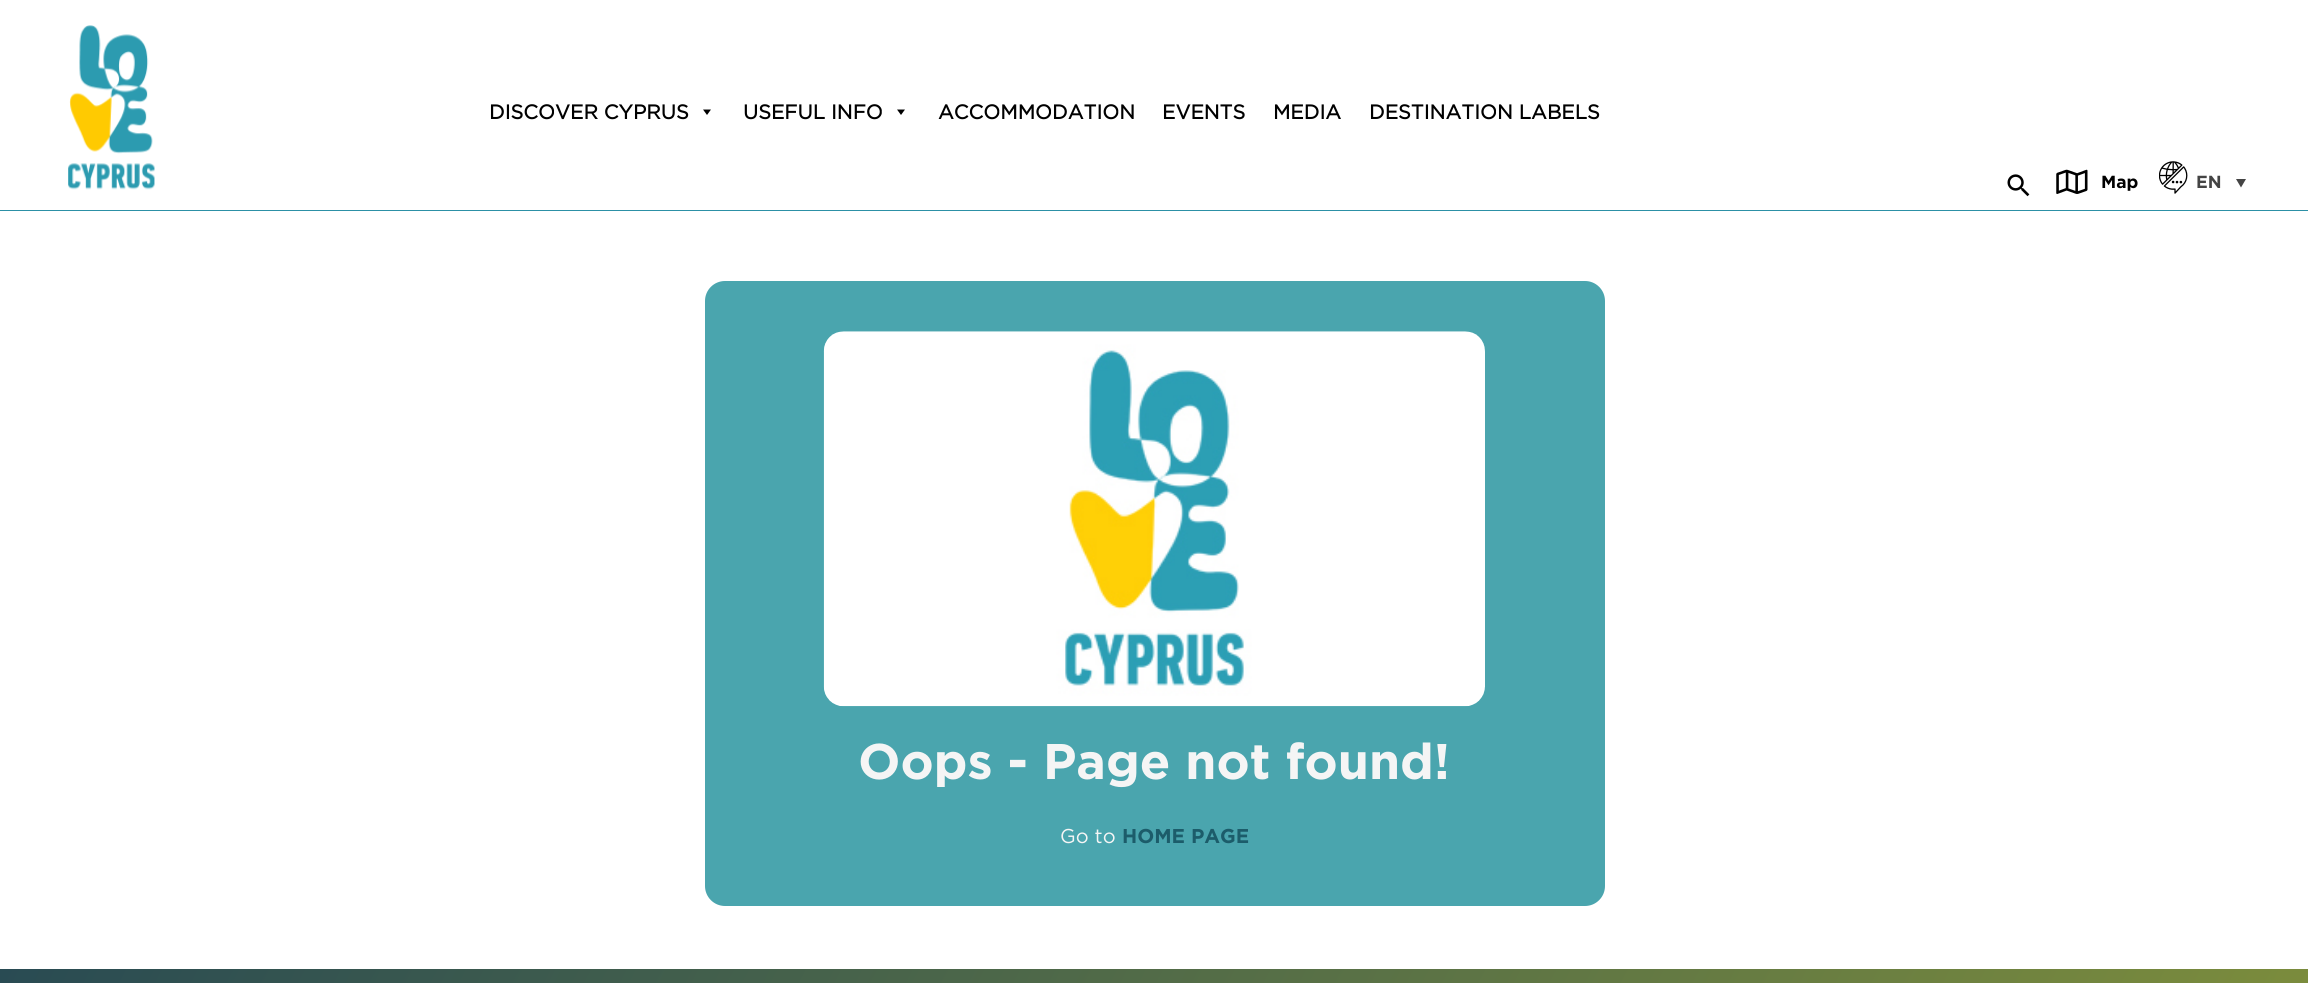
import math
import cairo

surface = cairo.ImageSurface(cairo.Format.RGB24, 2308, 983)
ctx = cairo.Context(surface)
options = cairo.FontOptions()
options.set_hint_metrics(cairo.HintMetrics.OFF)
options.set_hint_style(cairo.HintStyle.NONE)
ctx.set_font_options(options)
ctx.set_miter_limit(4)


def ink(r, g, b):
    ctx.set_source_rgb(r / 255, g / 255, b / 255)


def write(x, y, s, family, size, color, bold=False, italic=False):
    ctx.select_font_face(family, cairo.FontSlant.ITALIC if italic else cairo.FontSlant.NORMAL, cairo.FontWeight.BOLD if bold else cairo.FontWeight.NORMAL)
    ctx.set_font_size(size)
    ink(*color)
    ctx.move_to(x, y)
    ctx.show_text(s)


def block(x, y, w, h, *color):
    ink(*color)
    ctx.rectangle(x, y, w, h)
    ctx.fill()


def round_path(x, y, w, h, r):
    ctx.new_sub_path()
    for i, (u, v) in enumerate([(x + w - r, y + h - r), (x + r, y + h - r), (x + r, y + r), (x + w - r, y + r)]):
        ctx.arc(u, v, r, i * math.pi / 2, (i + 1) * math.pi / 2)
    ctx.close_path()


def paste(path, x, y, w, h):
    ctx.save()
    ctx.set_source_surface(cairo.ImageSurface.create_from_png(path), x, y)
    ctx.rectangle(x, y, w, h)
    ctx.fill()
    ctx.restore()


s1 = dict(family="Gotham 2", size=20, color=(0, 0, 0), bold=True)
s2 = dict(family="Gotham", size=17.5, color=(0, 0, 0), bold=True)
s3 = dict(family="Gotham", size=17.5, color=(68, 68, 68), bold=True)
s4 = dict(family="Gotham", size=50, color=(245, 245, 245), bold=True)
s5 = dict(family="Gotham", size=20, color=(245, 245, 245))
s6 = dict(family="Gotham", size=20, color=(28, 92, 106), bold=True)

ink(255, 255, 255)
ctx.paint()
block(0, 210, 2308, 1, 44, 144, 166)
paste("pic1.png", 68, 25, 87, 165)
write(489, 119, "DISCOVER CYPRUS", **s1)
ctx.new_path()
ctx.move_to(711, 109.5)
ctx.line_to(707, 115)
ctx.line_to(703, 109.5)
ctx.close_path()
ctx.fill()
write(743, 119, "USEFUL INFO", **s1)
ctx.new_path()
ctx.move_to(905, 109.5)
ctx.line_to(901, 115)
ctx.line_to(897, 109.5)
ctx.close_path()
ctx.fill()
write(938, 119, "ACCOMMODATION", **s1)
write(1162, 119, "EVENTS", **s1)
write(1273, 119, "MEDIA", **s1)
write(1369, 119, "DESTINATION LABELS", **s1)
paste("pic2.png", 2007, 174, 23, 23)
paste("pic3.png", 2056, 169, 32, 25)
write(2101, 188, "Map", **s2)
paste("pic4.png", 2159, 161, 29, 33)
write(2196, 188, "EN", **s3)
ctx.new_path()
ctx.move_to(2236, 179)
ctx.line_to(2246, 179)
ctx.line_to(2241, 187.5)
ctx.close_path()
ctx.fill()
ink(74, 165, 174)
round_path(705, 281, 900, 625, 20)
ctx.fill()
paste("pic5.png", 823, 331, 662, 376)
write(858, 779, "Oops - Page not found!", **s4)
write(1060, 843, "Go to", **s5)
write(1122, 843, "HOME PAGE", **s6)
gradient = cairo.LinearGradient(138, 710, 2171, 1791)
gradient.add_color_stop_rgba(0, 0.161, 0.294, 0.325, 1)
gradient.add_color_stop_rgba(1, 0.522, 0.58, 0.227, 1)
ctx.set_source(gradient)
ctx.rectangle(0, 969, 2308, 14)
ctx.fill()
surface.write_to_png("screenshot.png")
